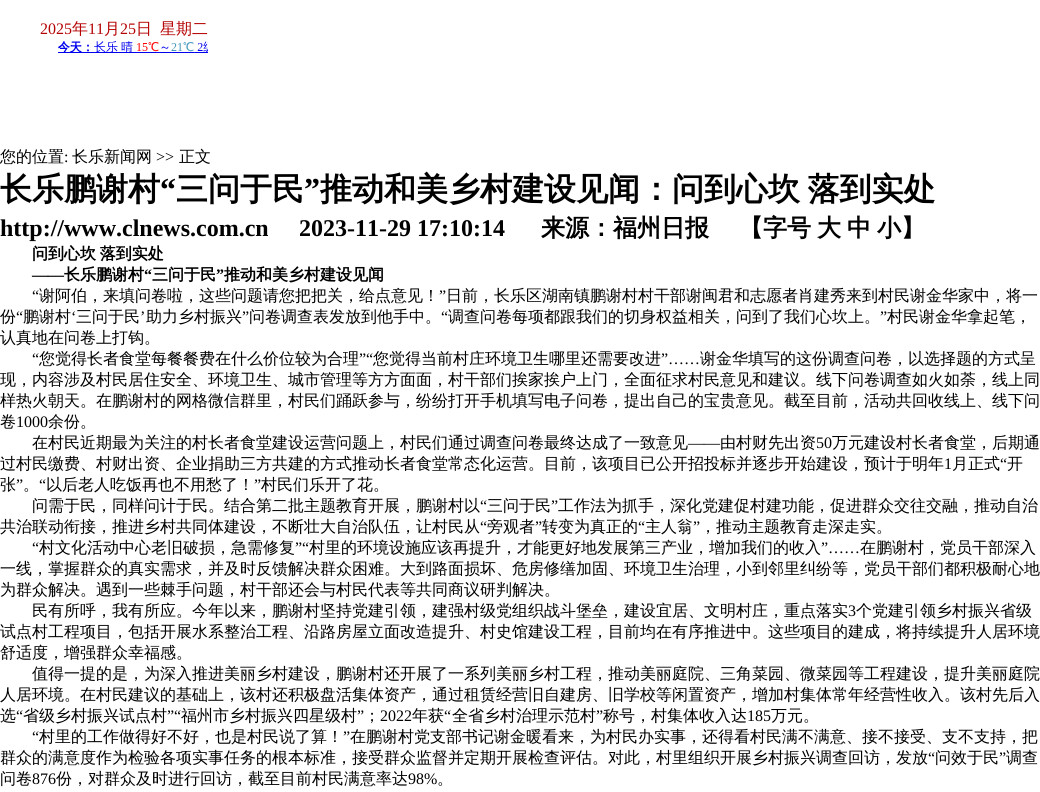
import math
import cairo

surface = cairo.ImageSurface(cairo.Format.RGB24, 1040, 792)
ctx = cairo.Context(surface)
options = cairo.FontOptions()
options.set_hint_metrics(cairo.HintMetrics.OFF)
options.set_hint_style(cairo.HintStyle.NONE)
ctx.set_font_options(options)
ctx.set_miter_limit(4)


def ink(r, g, b):
    ctx.set_source_rgb(r / 255, g / 255, b / 255)


def write(x, y, s, family, size, color, bold=False, italic=False):
    ctx.select_font_face(family, cairo.FontSlant.ITALIC if italic else cairo.FontSlant.NORMAL, cairo.FontWeight.BOLD if bold else cairo.FontWeight.NORMAL)
    ctx.set_font_size(size)
    ink(*color)
    ctx.move_to(x, y)
    ctx.show_text(s)


def write_spaced(x, y, s, letter, word):
    ctx.move_to(x, y)
    for ch in s:
        ctx.show_text(ch)
        ctx.rel_move_to(letter + word * (ch == ' '), 0)


def paste(path, x, y, w, h):
    ctx.save()
    ctx.set_source_surface(cairo.ImageSurface.create_from_png(path), x, y)
    ctx.rectangle(x, y, w, h)
    ctx.fill()
    ctx.restore()


s1 = dict(family="Liberation Serif", size=16, color=(181, 3, 3))
s2 = dict(family="WenQuanYi Zen Hei Medium", size=16, color=(181, 3, 3))
s3 = dict(family="WenQuanYi Zen Hei Medium", size=16, color=(0, 0, 0))
s4 = dict(family="Liberation Serif", size=16, color=(0, 0, 0))
s5 = dict(family="WenQuanYi Zen Hei", size=32, color=(0, 0, 0), bold=True)
s6 = dict(family="Liberation Serif", size=32, color=(0, 0, 0), bold=True)
s7 = dict(family="Liberation Serif", size=24, color=(0, 0, 0), bold=True)
s8 = dict(family="WenQuanYi Zen Hei", size=24, color=(0, 0, 0), bold=True)
s9 = dict(family="Liberation Serif", size=16, color=(0, 0, 0), bold=True)
s10 = dict(family="WenQuanYi Zen Hei", size=16, color=(0, 0, 0), bold=True)

ink(255, 255, 255)
ctx.paint()
write(40, 34, "2025", **s1)
write(72, 34, "年", **s2)
write(88, 34, "11", **s1)
write(104, 34, "月", **s2)
write(120, 34, "25", **s1)
write(136, 34, "日", **s2)
write(160, 34, "星期二", **s2)
paste("pic1.png", 58, 41, 150, 12)
write(0, 162, "您的位置", **s3)
write(64, 162, ":", **s4)
write(72, 162, "长乐新闻网", **s3)
write(156, 162, ">>", **s4)
write(179, 162, "正文", **s3)
write(0, 200, "长乐鹏谢村", **s5)
write(160, 200, "“", **s6)
write(176, 200, "三问于民", **s5)
write(304, 200, "”", **s6)
ctx.select_font_face("WenQuanYi Zen Hei", cairo.FontSlant.NORMAL, cairo.FontWeight.BOLD)
write_spaced(320, 200, "推动和美乡村建设见闻：问到心坎 落到实处", 0, -2)
write(0, 236, "http://www.clnews.com.cn", **s7)
write(299, 236, "2023-11-29 17:10:14", **s7)
write(541, 236, "来源：福州日报", **s8)
write(739, 236, "【字号", **s8)
write(817, 236, "大", **s8)
write(847, 236, "中", **s8)
write(877, 236, "小】", **s8)
ctx.set_font_size(16)
write_spaced(32, 259, "问到心坎 落到实处", 0, -1)
write(32, 280, "——", **s9)
write(64, 280, "长乐鹏谢村", **s10)
write(144, 280, "“", **s9)
write(152, 280, "三问于民", **s10)
write(216, 280, "”", **s9)
write(224, 280, "推动和美乡村建设见闻", **s10)
write(32, 301, "“", **s4)
write(39, 301, "谢阿伯，来填问卷啦，这些问题请您把把关，给点意见！", **s3)
write(439, 301, "”", **s4)
write(446, 301, "日前，长乐区湖南镇鹏谢村村干部谢闽君和志愿者肖建秀来到村民谢金华家中，将一", **s3)
write(0, 322, "份", **s3)
write(16, 322, "“", **s4)
write(23, 322, "鹏谢村", **s3)
write(71, 322, "‘", **s4)
write(76, 322, "三问于民", **s3)
write(140, 322, "’", **s4)
write(146, 322, "助力乡村振兴", **s3)
write(242, 322, "”", **s4)
write(249, 322, "问卷调查表发放到他手中。", **s3)
write(441, 322, "“", **s4)
write(448, 322, "调查问卷每项都跟我们的切身权益相关，问到了我们心坎上。", **s3)
write(880, 322, "”", **s4)
write(887, 322, "村民谢金华拿起笔，", **s3)
write(0, 343, "认真地在问卷上打钩。", **s3)
write(32, 364, "“", **s4)
write(39, 364, "您觉得长者食堂每餐餐费在什么价位较为合理", **s3)
write(359, 364, "”“", **s4)
write(373, 364, "您觉得当前村庄环境卫生哪里还需要改进", **s3)
write(661, 364, "”……", **s4)
write(700, 364, "谢金华填写的这份调查问卷，以选择题的方式呈", **s3)
write(0, 385, "现，内容涉及村民居住安全、环境卫生、城市管理等方方面面，村干部们挨家挨户上门，全面征求村民意见和建议。线下问卷调查如火如荼，线上同", **s3)
write(0, 406, "样热火朝天。在鹏谢村的网格微信群里，村民们踊跃参与，纷纷打开手机填写电子问卷，提出自己的宝贵意见。截至目前，活动共回收线上、线下问", **s3)
write(0, 427, "卷", **s3)
write(16, 427, "1000", **s4)
write(48, 427, "余份。", **s3)
write(32, 448, "在村民近期最为关注的村长者食堂建设运营问题上，村民们通过调查问卷最终达成了一致意见", **s3)
write(688, 448, "——", **s4)
write(720, 448, "由村财先出资", **s3)
write(816, 448, "50", **s4)
write(832, 448, "万元建设村长者食堂，后期通", **s3)
write(0, 469, "过村民缴费、村财出资、企业捐助三方共建的方式推动长者食堂常态化运营。目前，该项目已公开招投标并逐步开始建设，预计于明年", **s3)
write(944, 469, "1", **s4)
write(952, 469, "月正式", **s3)
write(1000, 469, "“", **s4)
write(1007, 469, "开", **s3)
write(0, 490, "张", **s3)
write(16, 490, "”", **s4)
write(39, 490, "“", **s4)
write(46, 490, "以后老人吃饭再也不用愁了！", **s3)
write(254, 490, "”", **s4)
write(261, 490, "村民们乐开了花。", **s3)
write(23, 490, "。", **s3)
write(32, 511, "问需于民，同样问计于民。结合第二批主题教育开展，鹏谢村以", **s3)
write(480, 511, "“", **s4)
write(487, 511, "三问于民", **s3)
write(551, 511, "”", **s4)
write(558, 511, "工作法为抓手，深化党建促村建功能，促进群众交往交融，推动自治", **s3)
write(0, 532, "共治联动衔接，推进乡村共同体建设，不断壮大自治队伍，让村民从", **s3)
write(480, 532, "“", **s4)
write(487, 532, "旁观者", **s3)
write(535, 532, "”", **s4)
write(542, 532, "转变为真正的", **s3)
write(638, 532, "“", **s4)
write(645, 532, "主人翁", **s3)
write(693, 532, "”", **s4)
write(700, 532, "，推动主题教育走深走实。", **s3)
write(32, 553, "“", **s4)
write(39, 553, "村文化活动中心老旧破损，急需修复", **s3)
write(295, 553, "”“", **s4)
write(309, 553, "村里的环境设施应该再提升，才能更好地发展第三产业，增加我们的收入", **s3)
write(821, 553, "”……", **s4)
write(860, 553, "在鹏谢村，党员干部深入", **s3)
write(0, 574, "一线，掌握群众的真实需求，并及时反馈解决群众困难。大到路面损坏、危房修缮加固、环境卫生治理，小到邻里纠纷等，党员干部们都积极耐心地", **s3)
write(0, 595, "为群众解决。遇到一些棘手问题，村干部还会与村民代表等共同商议研判解决。", **s3)
write(32, 616, "民有所呼，我有所应。今年以来，鹏谢村坚持党建引领，建强村级党组织战斗堡垒，建设宜居、文明村庄，重点落实", **s3)
write(848, 616, "3", **s4)
write(856, 616, "个党建引领乡村振兴省级", **s3)
write(0, 637, "试点村工程项目，包括开展水系整治工程、沿路房屋立面改造提升、村史馆建设工程，目前均在有序推进中。这些项目的建成，将持续提升人居环境", **s3)
write(0, 658, "舒适度，增强群众幸福感。", **s3)
write(32, 679, "值得一提的是，为深入推进美丽乡村建设，鹏谢村还开展了一系列美丽乡村工程，推动美丽庭院、三角菜园、微菜园等工程建设，提升美丽庭院", **s3)
write(0, 700, "人居环境。在村民建议的基础上，该村还积极盘活集体资产，通过租赁经营旧自建房、旧学校等闲置资产，增加村集体常年经营性收入。该村先后入", **s3)
write(0, 721, "选", **s3)
write(16, 721, "“", **s4)
write(23, 721, "省级乡村振兴试点村", **s3)
write(167, 721, "”“", **s4)
write(181, 721, "福州市乡村振兴四星级村", **s3)
write(357, 721, "”", **s4)
write(364, 721, "；", **s3)
write(380, 721, "2022", **s4)
write(412, 721, "年获", **s3)
write(444, 721, "“", **s4)
write(452, 721, "全省乡村治理示范村", **s3)
write(596, 721, "”", **s4)
write(603, 721, "称号，村集体收入达", **s3)
write(747, 721, "185", **s4)
write(771, 721, "万元。", **s3)
write(32, 742, "“", **s4)
write(39, 742, "村里的工作做得好不好，也是村民说了算！", **s3)
write(343, 742, "”", **s4)
write(350, 742, "在鹏谢村党支部书记谢金暖看来，为村民办实事，还得看村民满不满意、接不接受、支不支持，把", **s3)
write(0, 763, "群众的满意度作为检验各项实事任务的根本标准，接受群众监督并定期开展检查评估。对此，村里组织开展乡村振兴调查回访，发放", **s3)
write(928, 763, "“", **s4)
write(935, 763, "问效于民", **s3)
write(999, 763, "”", **s4)
write(1006, 763, "调查", **s3)
write(0, 784, "问卷", **s3)
write(32, 784, "876", **s4)
write(56, 784, "份，对群众及时进行回访，截至目前村民满意率达", **s3)
write(408, 784, "98%", **s4)
write(437, 784, "。", **s3)
surface.write_to_png("screenshot.png")
